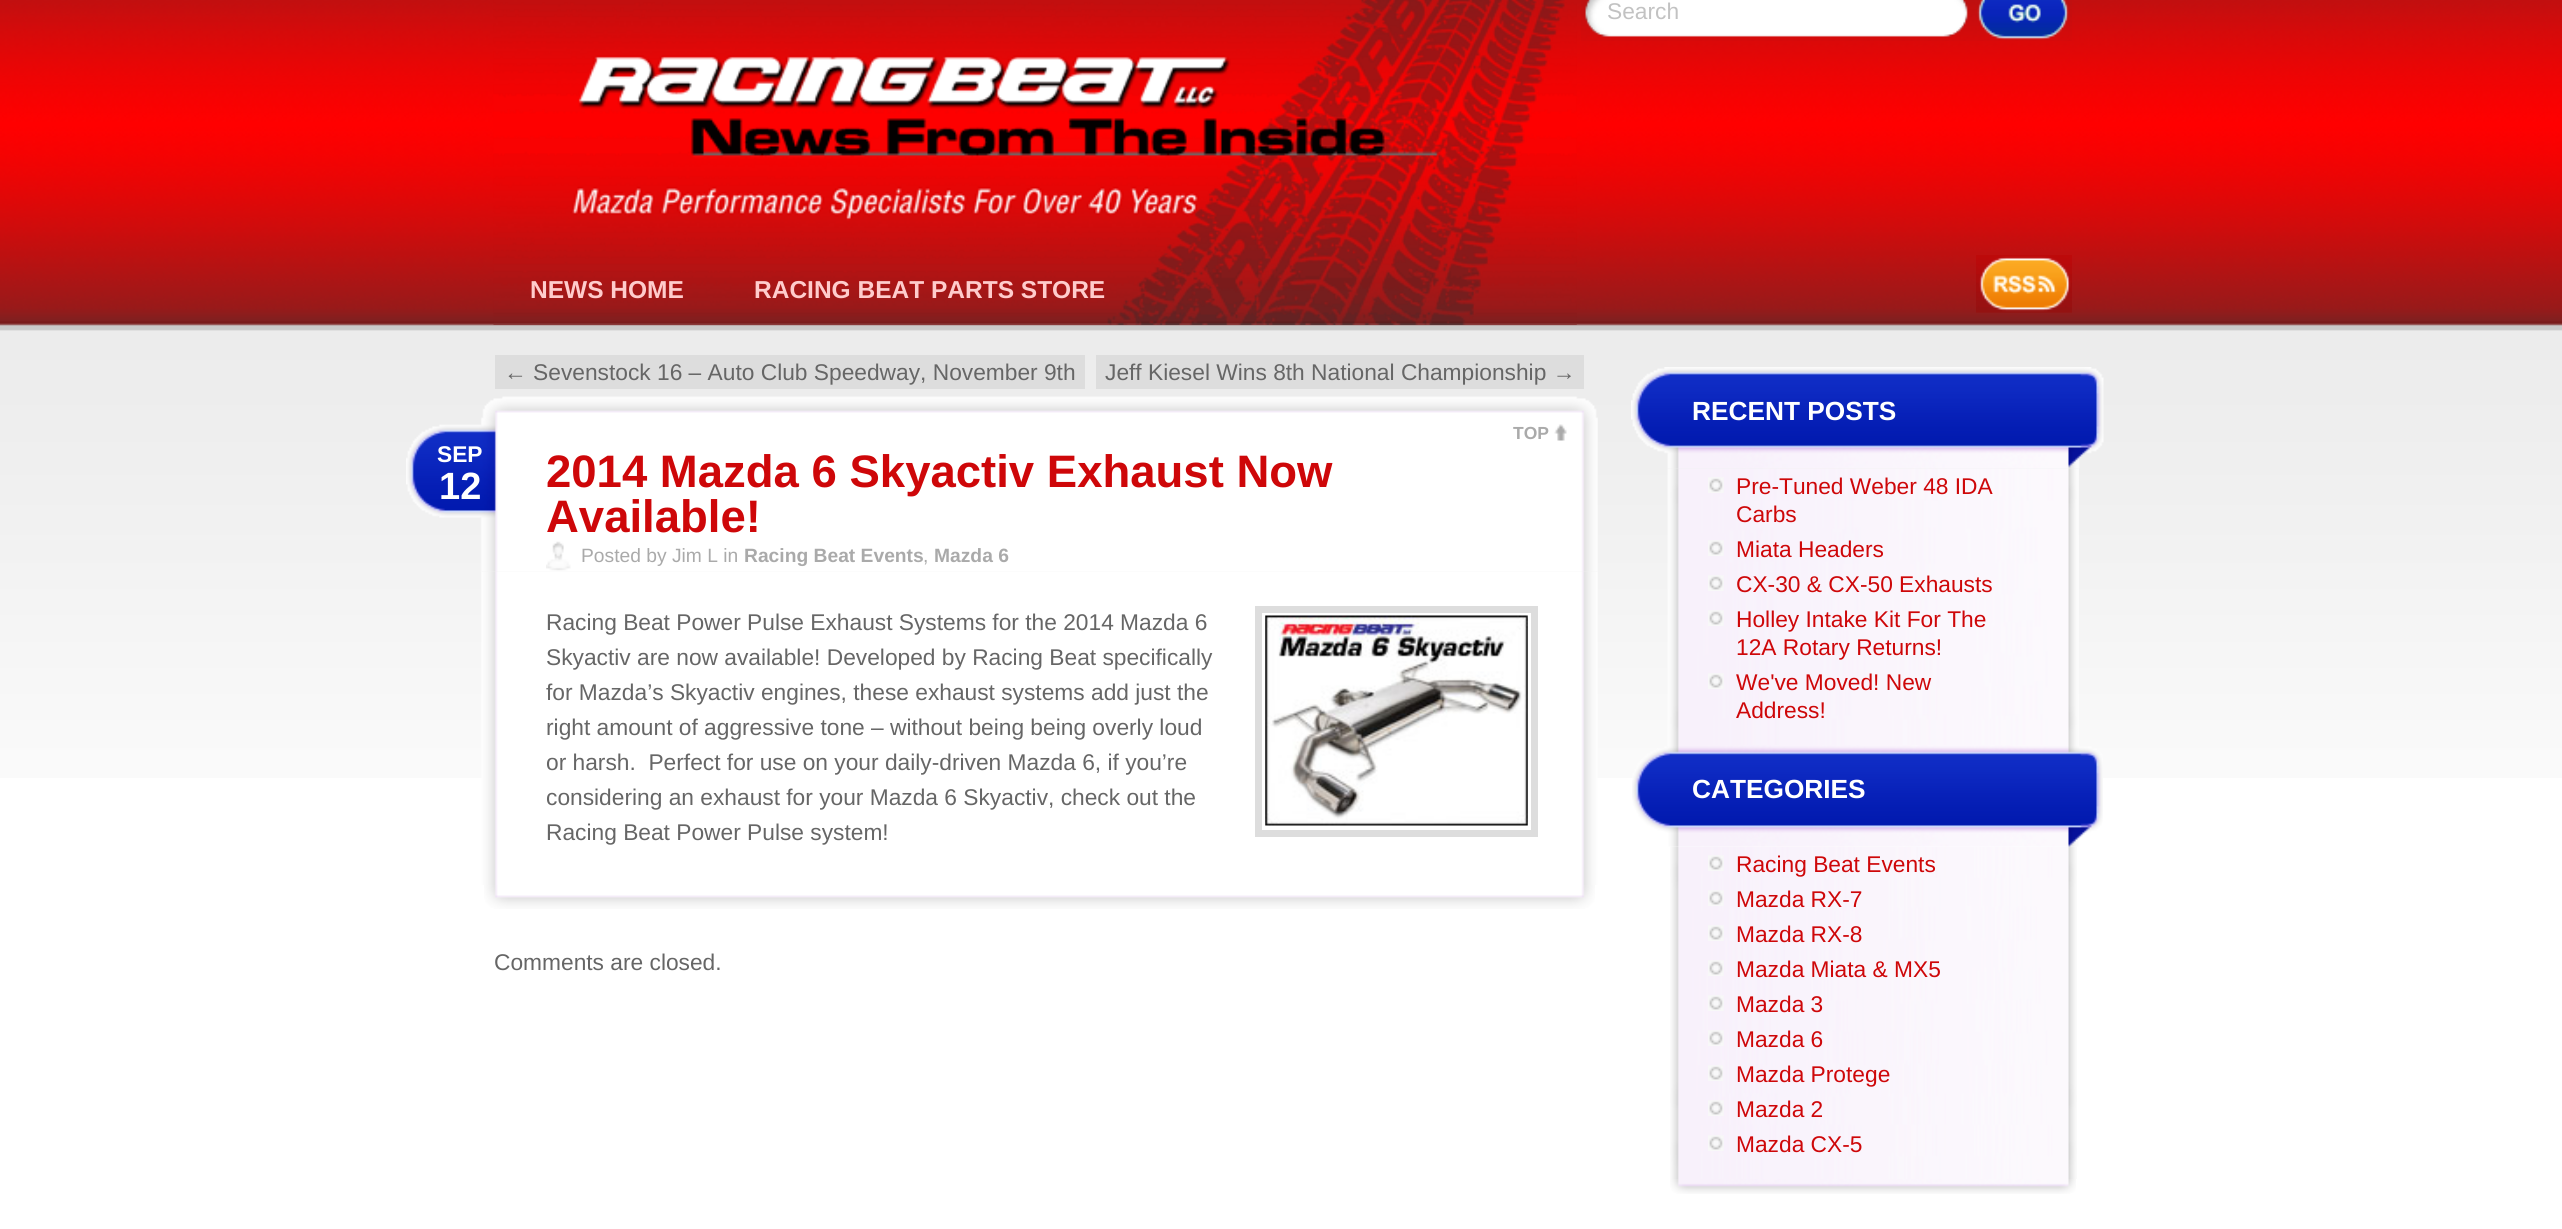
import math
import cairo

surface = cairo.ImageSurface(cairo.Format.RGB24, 2562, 1229)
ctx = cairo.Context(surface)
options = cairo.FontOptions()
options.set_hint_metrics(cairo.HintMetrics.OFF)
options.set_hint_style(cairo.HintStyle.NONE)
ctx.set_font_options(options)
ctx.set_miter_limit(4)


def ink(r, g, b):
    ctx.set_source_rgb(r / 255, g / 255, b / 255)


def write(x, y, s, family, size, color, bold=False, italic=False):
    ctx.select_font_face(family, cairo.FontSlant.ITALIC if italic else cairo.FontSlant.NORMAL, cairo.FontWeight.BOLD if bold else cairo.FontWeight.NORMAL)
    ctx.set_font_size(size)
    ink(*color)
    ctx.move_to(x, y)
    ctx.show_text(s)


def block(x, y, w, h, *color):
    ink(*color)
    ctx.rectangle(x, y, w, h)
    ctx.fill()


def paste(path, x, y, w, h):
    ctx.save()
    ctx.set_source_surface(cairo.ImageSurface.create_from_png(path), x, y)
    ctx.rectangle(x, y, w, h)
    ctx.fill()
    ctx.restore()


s1 = dict(family="Liberation Sans", size=22.75, color=(194, 194, 194))
s2 = dict(family="Liberation Sans", size=24.5, color=(255, 204, 204), bold=True)
s3 = dict(family="Liberation Sans", size=22.75, color=(102, 102, 102))
s4 = dict(family="Liberation Sans", size=17.5, color=(170, 170, 170), bold=True)
s5 = dict(family="Liberation Sans", size=22.75, color=(255, 255, 255), bold=True)
s6 = dict(family="Liberation Sans", size=38, color=(255, 255, 255), bold=True)
s7 = dict(family="Liberation Sans", size=45.5, color=(206, 7, 9), bold=True)
s8 = dict(family="Liberation Sans", size=19.25, color=(170, 170, 170))
s9 = dict(family="Liberation Sans", size=19.25, color=(170, 170, 170), bold=True)
s10 = dict(family="Liberation Sans", size=26.25, color=(255, 255, 255), bold=True)
s11 = dict(family="Liberation Sans", size=22.75, color=(206, 7, 9))

ink(255, 255, 255)
ctx.paint()
paste("pic1.png", 0, 0, 2562, 778)
paste("pic2.png", 493, 0, 1084, 325)
paste("pic3.png", 1581, 0, 491, 41)
write(1607, 19, "Search", **s1)
paste("pic4.png", 1977, 0, 92, 40)
write(530, 298, "NEWS HOME", **s2)
write(754, 298, "RACING BEAT PARTS STORE", **s2)
paste("pic5.png", 1976, 255, 96, 58)
block(495, 355, 590, 34, 221, 221, 221)
write(504, 380, "← Sevenstock 16 – Auto Club Speedway, November 9th", **s3)
block(1096, 355, 488, 34, 221, 221, 221)
write(1105, 380, "Jeff Kiesel Wins 8th National Championship →", **s3)
paste("pic6.png", 406, 396, 1192, 176)
paste("pic7.png", 1554, 424, 13, 17)
write(1513, 439, "TOP", **s4)
write(437, 462, "SEP", **s5)
write(439, 499, "12", **s6)
write(546, 487, "2014 Mazda 6 Skyactiv Exhaust Now", **s7)
write(546, 532, "Available!", **s7)
paste("pic8.png", 546, 541, 25, 30)
write(581, 562, "Posted by Jim L in", **s8)
write(744, 562, "Racing Beat Events", **s9)
write(923, 562, ",", **s8)
write(934, 562, "Mazda 6", **s9)
paste("pic9.png", 481, 572, 1117, 313)
write(546, 630, "Racing Beat Power Pulse Exhaust Systems for the 2014 Mazda 6", **s3)
ctx.rectangle(1258.5, 609.5, 276, 224)
ink(221, 221, 221)
ctx.set_line_width(7)
ctx.stroke()
paste("pic10.png", 1265, 615, 263, 211)
write(546, 665, "Skyactiv are now available! Developed by Racing Beat specifically", **s3)
write(546, 700, "for Mazda’s Skyactiv engines, these exhaust systems add just the", **s3)
write(546, 735, "right amount of aggressive tone – without being being overly loud", **s3)
write(546, 770, "or harsh.  Perfect for use on your daily-driven Mazda 6, if you’re", **s3)
write(546, 805, "considering an exhaust for your Mazda 6 Skyactiv, check out the", **s3)
write(546, 840, "Racing Beat Power Pulse system!", **s3)
paste("pic11.png", 484, 885, 1111, 24)
write(494, 970, "Comments are closed.", **s3)
paste("pic13.png", 1667, 468, 412, 277)
paste("pic12.png", 1631, 367, 473, 102)
write(1692, 420, "RECENT POSTS", **s10)
paste("pic14.png", 1708, 477, 16, 16)
write(1736, 494, "Pre-Tuned Weber 48 IDA", **s11)
write(1736, 522, "Carbs", **s11)
paste("pic14.png", 1708, 540, 16, 16)
write(1736, 557, "Miata Headers", **s11)
paste("pic14.png", 1708, 575, 16, 16)
write(1736, 592, "CX-30 & CX-50 Exhausts", **s11)
paste("pic14.png", 1708, 610, 16, 16)
write(1736, 627, "Holley Intake Kit For The", **s11)
write(1736, 655, "12A Rotary Returns!", **s11)
paste("pic14.png", 1708, 673, 16, 16)
write(1736, 690, "We've Moved! New", **s11)
write(1736, 718, "Address!", **s11)
paste("pic16.png", 1670, 846, 407, 333)
paste("pic15.png", 1632, 745, 471, 102)
write(1692, 798, "CATEGORIES", **s10)
paste("pic14.png", 1708, 855, 16, 16)
write(1736, 872, "Racing Beat Events", **s11)
paste("pic17.png", 1708, 890, 16, 16)
write(1736, 907, "Mazda RX-7", **s11)
paste("pic14.png", 1708, 925, 16, 16)
write(1736, 942, "Mazda RX-8", **s11)
paste("pic14.png", 1708, 960, 16, 16)
write(1736, 977, "Mazda Miata & MX5", **s11)
paste("pic14.png", 1708, 995, 16, 16)
write(1736, 1012, "Mazda 3", **s11)
paste("pic14.png", 1708, 1030, 16, 16)
write(1736, 1047, "Mazda 6", **s11)
paste("pic18.png", 1708, 1065, 15, 16)
write(1736, 1082, "Mazda Protege", **s11)
paste("pic19.png", 1708, 1100, 16, 16)
write(1736, 1117, "Mazda 2", **s11)
paste("pic14.png", 1708, 1135, 16, 16)
write(1736, 1152, "Mazda CX-5", **s11)
paste("pic20.png", 1670, 1179, 406, 15)
surface.write_to_png("screenshot.png")
